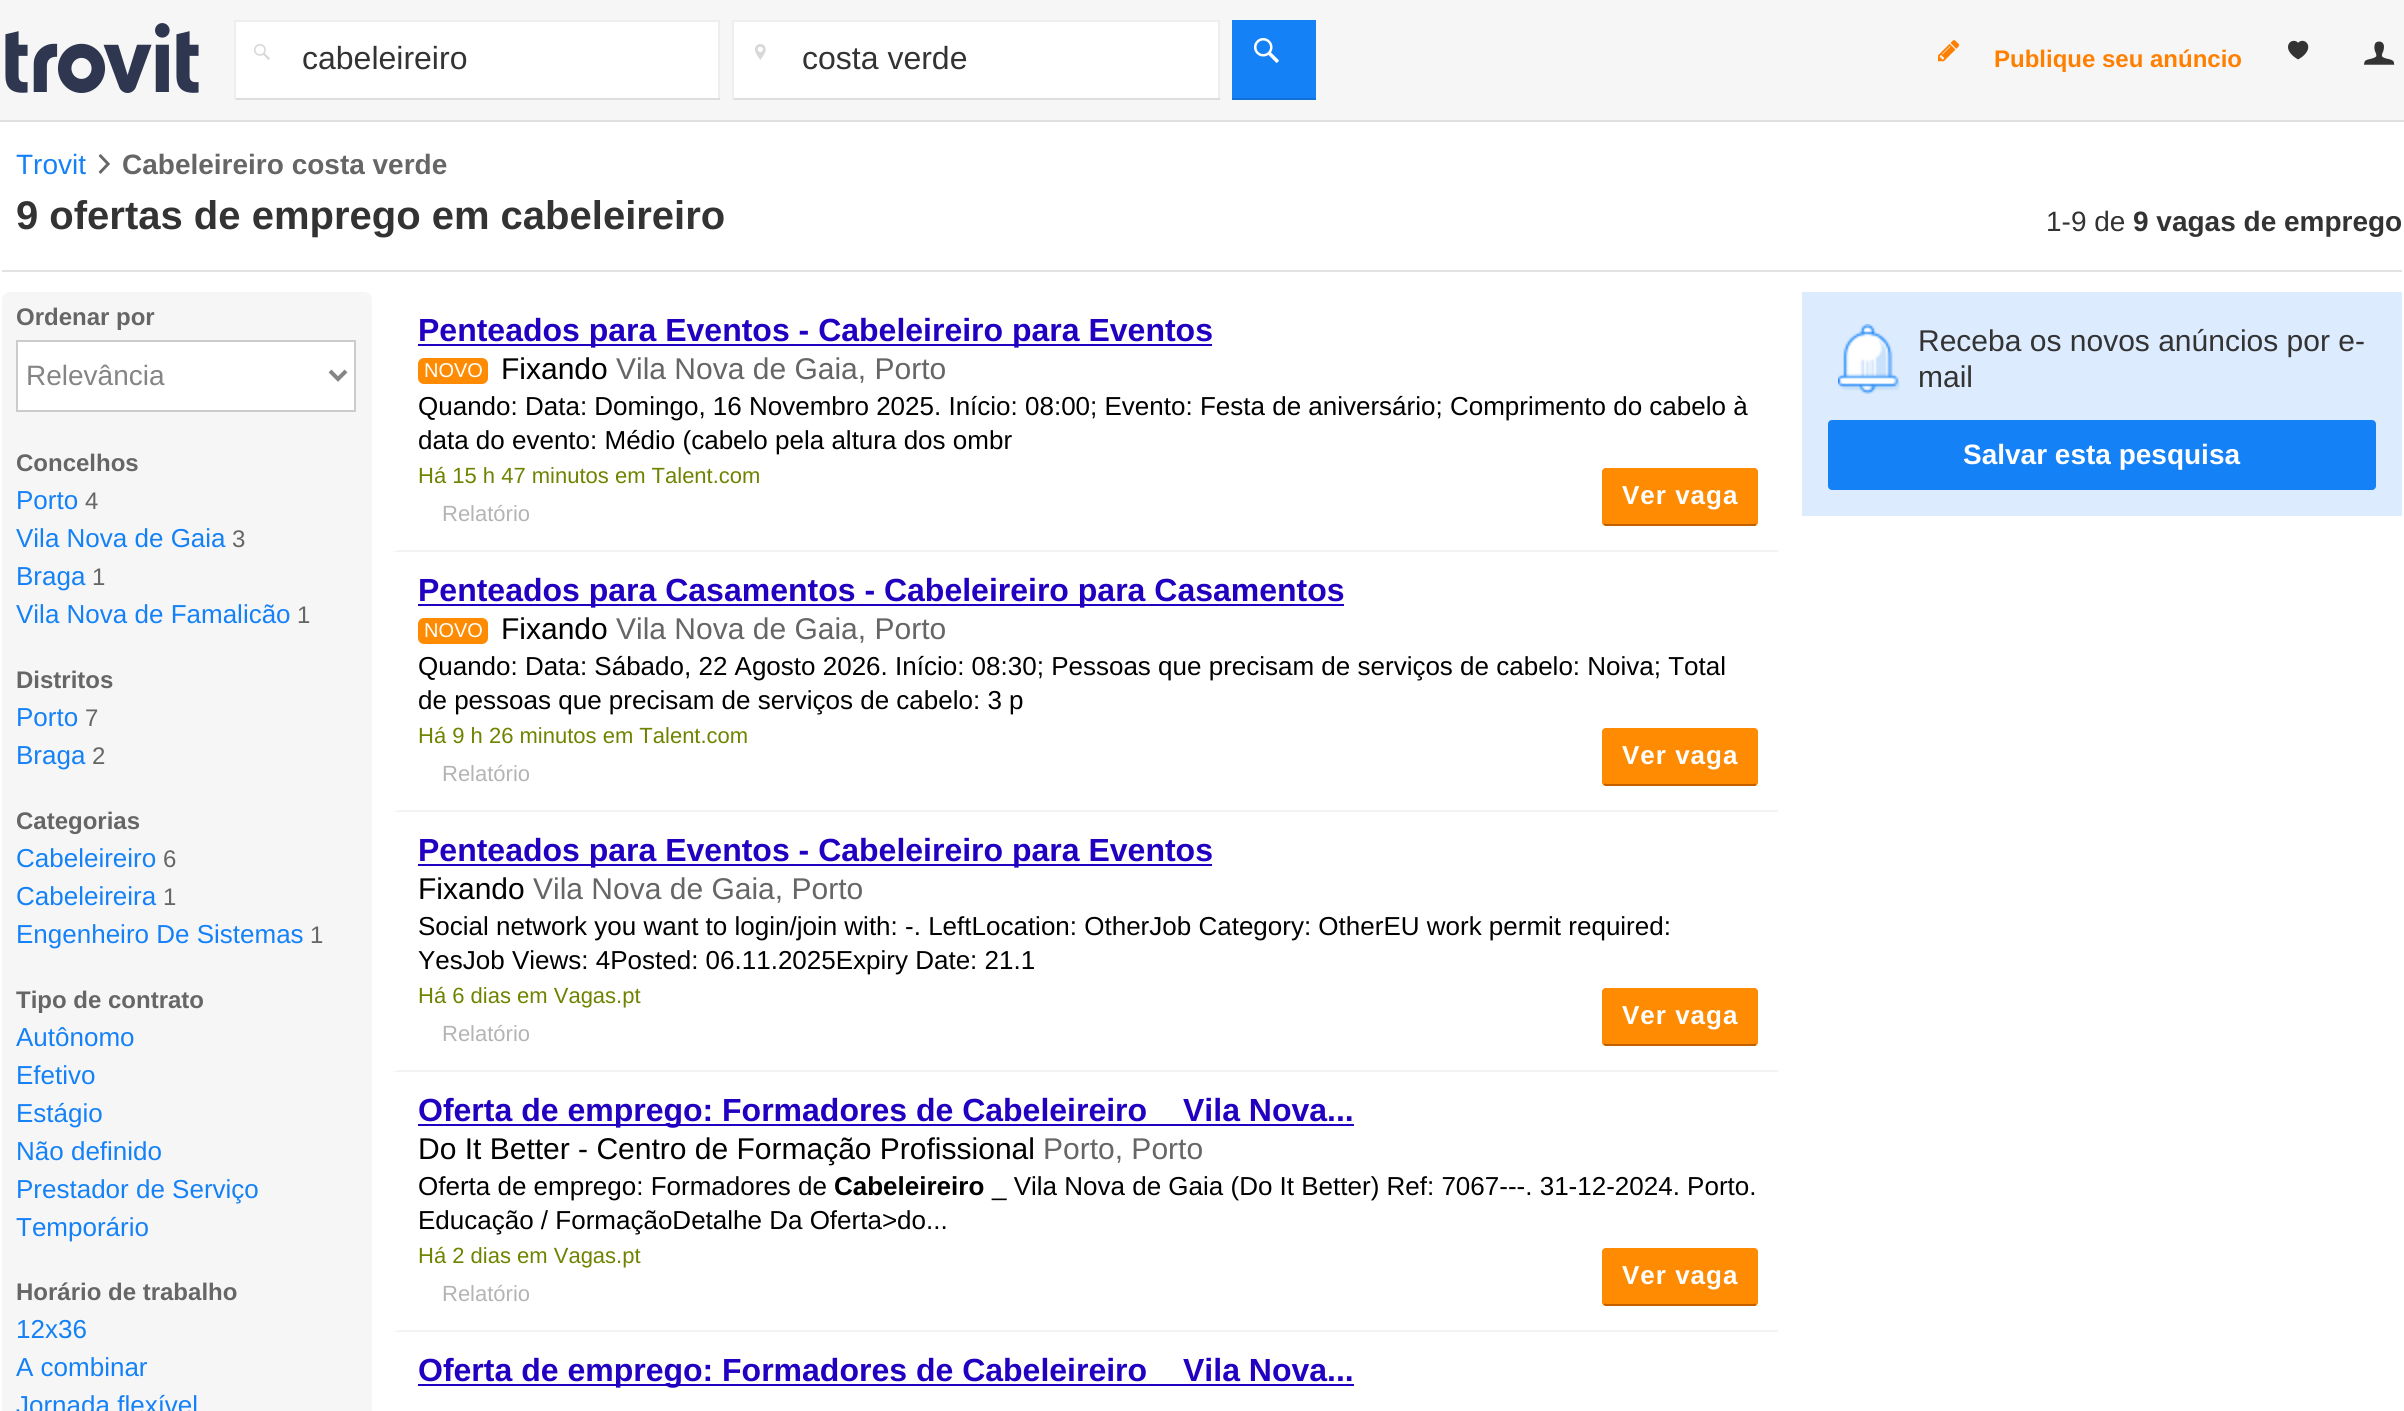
import math
import cairo

surface = cairo.ImageSurface(cairo.Format.RGB24, 2404, 1411)
ctx = cairo.Context(surface)
options = cairo.FontOptions()
options.set_hint_metrics(cairo.HintMetrics.OFF)
options.set_hint_style(cairo.HintStyle.NONE)
ctx.set_font_options(options)
ctx.set_miter_limit(4)


def ink(r, g, b):
    ctx.set_source_rgb(r / 255, g / 255, b / 255)


def write(x, y, s, family, size, color, bold=False, italic=False):
    ctx.select_font_face(family, cairo.FontSlant.ITALIC if italic else cairo.FontSlant.NORMAL, cairo.FontWeight.BOLD if bold else cairo.FontWeight.NORMAL)
    ctx.set_font_size(size)
    ink(*color)
    ctx.move_to(x, y)
    ctx.show_text(s)


def write_spaced(x, y, s, letter, word):
    ctx.move_to(x, y)
    for ch in s:
        ctx.show_text(ch)
        ctx.rel_move_to(letter + word * (ch == ' '), 0)


def block(x, y, w, h, *color):
    ink(*color)
    ctx.rectangle(x, y, w, h)
    ctx.fill()


def round_path(x, y, w, h, r):
    ctx.new_sub_path()
    for i, (u, v) in enumerate([(x + w - r, y + h - r), (x + r, y + h - r), (x + r, y + r), (x + w - r, y + r)]):
        ctx.arc(u, v, r, i * math.pi / 2, (i + 1) * math.pi / 2)
    ctx.close_path()


def paste(path, x, y, w, h):
    ctx.save()
    ctx.set_source_surface(cairo.ImageSurface.create_from_png(path), x, y)
    ctx.rectangle(x, y, w, h)
    ctx.fill()
    ctx.restore()


s1 = dict(family="Liberation Sans", size=32, color=(51, 51, 51))
s2 = dict(family="Liberation Sans", size=24, color=(255, 127, 0), bold=True)
s3 = dict(family="Liberation Sans", size=28, color=(20, 129, 247))
s4 = dict(family="Liberation Sans", size=28, color=(102, 102, 102), bold=True)
s5 = dict(family="Liberation Sans", size=40, color=(51, 51, 51), bold=True)
s6 = dict(family="Liberation Sans", size=28, color=(51, 51, 51))
s7 = dict(family="Liberation Sans", size=28, color=(51, 51, 51), bold=True)
s8 = dict(family="Liberation Sans", size=24, color=(102, 102, 102), bold=True)
s9 = dict(family="Liberation Sans", size=28, color=(133, 133, 133))
s10 = dict(family="Liberation Sans", size=26, color=(20, 129, 247))
s11 = dict(family="Liberation Sans", size=24, color=(102, 102, 102))
s12 = dict(family="Liberation Sans", size=32, color=(34, 0, 193), bold=True)
s13 = dict(family="Liberation Sans", size=20, color=(255, 255, 255))
s14 = dict(family="Liberation Sans", size=30, color=(0, 0, 0))
s15 = dict(family="Liberation Sans", size=30, color=(102, 102, 102))
s16 = dict(family="Liberation Sans", size=26, color=(0, 0, 0))
s17 = dict(family="Liberation Sans", size=22, color=(112, 131, 0))
s18 = dict(family="Liberation Sans", size=22, color=(180, 180, 180))
s19 = dict(family="Liberation Sans", size=26, color=(0, 0, 0), bold=True)
s20 = dict(family="Liberation Sans", size=30, color=(51, 51, 51))
s21 = dict(family="Liberation Sans", size=28, color=(255, 255, 255), bold=True)

ink(255, 255, 255)
ctx.paint()
block(0, 0, 2404, 120, 246, 246, 247)
block(0, 120, 2404, 2, 225, 224, 224)
paste("pic1.png", 5, 23, 194, 70)
block(236, 22, 482, 76, 255, 255, 255)
paste("pic2.png", 254, 44, 16, 16)
block(234, 20, 486, 2, 238, 238, 238)
block(718, 20, 2, 80, 238, 238, 238)
block(234, 98, 486, 2, 221, 221, 221)
block(234, 20, 2, 80, 238, 238, 238)
write(302, 69, "cabeleireiro", **s1)
block(734, 22, 484, 76, 255, 255, 255)
paste("pic3.png", 755, 44, 11, 16)
block(732, 20, 488, 2, 238, 238, 238)
block(1218, 20, 2, 80, 238, 238, 238)
block(732, 98, 488, 2, 221, 221, 221)
block(732, 20, 2, 80, 238, 238, 238)
write(802, 69, "costa verde", **s1)
block(1232, 20, 84, 78, 20, 129, 247)
block(1232, 98, 84, 2, 18, 113, 216)
paste("pic4.png", 1254, 38, 25, 25)
paste("pic5.png", 1938, 40, 22, 22)
write(1994, 67, "Publique seu anúncio", **s2)
paste("pic6.png", 2288, 40, 21, 20)
paste("pic7.png", 2364, 41, 31, 24)
block(2, 270, 2400, 2, 226, 226, 226)
write(16, 174, "Trovit", **s3)
paste("pic8.png", 98, 154, 12, 20)
write(122, 174, "Cabeleireiro costa verde", **s4)
write(16, 229, "9 ofertas de emprego em cabeleireiro", **s5)
write(2046, 231, "1-9 de", **s6)
write(2133, 231, "9 vagas de emprego", **s7)
ink(246, 246, 247)
round_path(2, 292, 370, 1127, 8)
ctx.fill()
write(16, 325, "Ordenar por", **s8)
ink(255, 255, 255)
ctx.rectangle(17, 341, 338, 70)
ctx.fill_preserve()
ink(204, 204, 204)
ctx.stroke()
ctx.new_path()
ctx.move_to(330, 371)
ctx.line_to(338, 379)
ctx.line_to(346, 371)
ink(133, 133, 133)
ctx.set_line_width(4)
ctx.stroke()
write(26, 385, "Relevância", **s9)
write(16, 471, "Concelhos", **s8)
write(16, 509, "Porto", **s10)
write(85, 509, "4", **s11)
write(16, 547, "Vila Nova de Gaia", **s10)
write(232, 547, "3", **s11)
write(16, 585, "Braga", **s10)
write(92, 585, "1", **s11)
write(16, 623, "Vila Nova de Famalicão", **s10)
write(297, 623, "1", **s11)
write(16, 688, "Distritos", **s8)
write(16, 726, "Porto", **s10)
write(85, 726, "7", **s11)
write(16, 764, "Braga", **s10)
write(92, 764, "2", **s11)
write(16, 829, "Categorias", **s8)
write(16, 867, "Cabeleireiro", **s10)
write(163, 867, "6", **s11)
write(16, 905, "Cabeleireira", **s10)
write(163, 905, "1", **s11)
write(16, 943, "Engenheiro De Sistemas", **s10)
write(310, 943, "1", **s11)
write(16, 1008, "Tipo de contrato", **s8)
write(16, 1046, "Autônomo", **s10)
write(16, 1084, "Efetivo", **s10)
write(16, 1122, "Estágio", **s10)
write(16, 1160, "Não definido", **s10)
write(16, 1198, "Prestador de Serviço", **s10)
write(16, 1236, "Temporário", **s10)
write(16, 1300, "Horário de trabalho", **s8)
write(16, 1338, "12x36", **s10)
write(16, 1376, "A combinar", **s10)
write(16, 1414, "Jornada flexível", **s10)
ink(243, 243, 243)
ctx.new_path()
ctx.move_to(1778, 552)
ctx.line_to(392, 552)
ctx.line_to(398, 550)
ctx.line_to(1778, 550)
ctx.close_path()
ctx.fill()
ink(255, 255, 255)
ctx.new_path()
ctx.move_to(392, 552)
ctx.line_to(392, 292)
ctx.line_to(398, 292)
ctx.line_to(398, 550)
ctx.close_path()
ctx.fill()
block(418, 344, 794, 2, 34, 0, 193)
write(418, 341, "Penteados para Eventos - Cabeleireiro para Eventos", **s12)
ink(255, 139, 2)
round_path(418, 358, 70, 26, 6)
ctx.fill()
write(424, 377, "NOVO", **s13)
write(501, 379, "Fixando", **s14)
write(616, 379, "Vila Nova de Gaia, Porto", **s15)
write(418, 415, "Quando: Data: Domingo, 16 Novembro 2025. Início: 08:00; Evento: Festa de aniversário; Comprimento do cabelo à", **s16)
write(418, 449, "data do evento: Médio (cabelo pela altura dos ombr", **s16)
write(418, 483, "Há 15 h 47 minutos em Talent.com", **s17)
ink(255, 139, 2)
round_path(1602, 468, 156, 58, 4)
ctx.fill()
ctx.new_path()
ctx.move_to(1756, 524)
ctx.line_to(1754.5, 525)
ctx.line_to(1630.5, 525)
ctx.line_to(1606, 525)
ctx.line_to(1604, 524)
ink(194, 95, 0)
ctx.set_line_width(2)
ctx.stroke()
ctx.new_path()
ctx.move_to(1604, 524)
ctx.line_to(1603, 522)
ctx.line_to(1603, 472)
ctx.line_to(1604, 470)
ctx.line_to(1606, 469)
ctx.line_to(1754, 469)
ctx.line_to(1756, 470)
ctx.line_to(1757, 472)
ctx.line_to(1757, 522)
ctx.line_to(1756, 524)
ink(255, 139, 2)
ctx.stroke()
ctx.select_font_face("Liberation Sans", cairo.FontSlant.NORMAL, cairo.FontWeight.BOLD)
ctx.set_font_size(26)
ink(255, 255, 255)
write_spaced(1622, 504, "Ver vaga", 1, 0)
write(442, 521, "Relatório", **s18)
ink(243, 243, 243)
ctx.new_path()
ctx.move_to(1778, 812)
ctx.line_to(392, 812)
ctx.line_to(398, 810)
ctx.line_to(1778, 810)
ctx.close_path()
ctx.fill()
ink(255, 255, 255)
ctx.new_path()
ctx.move_to(392, 812)
ctx.line_to(392, 552)
ctx.line_to(398, 552)
ctx.line_to(398, 810)
ctx.close_path()
ctx.fill()
block(418, 604, 926, 2, 34, 0, 193)
write(418, 601, "Penteados para Casamentos - Cabeleireiro para Casamentos", **s12)
ink(255, 139, 2)
round_path(418, 618, 70, 26, 6)
ctx.fill()
write(424, 637, "NOVO", **s13)
write(501, 639, "Fixando", **s14)
write(616, 639, "Vila Nova de Gaia, Porto", **s15)
write(418, 675, "Quando: Data: Sábado, 22 Agosto 2026. Início: 08:30; Pessoas que precisam de serviços de cabelo: Noiva; Total", **s16)
write(418, 709, "de pessoas que precisam de serviços de cabelo: 3 p", **s16)
write(418, 743, "Há 9 h 26 minutos em Talent.com", **s17)
ink(255, 139, 2)
round_path(1602, 728, 156, 58, 4)
ctx.fill()
ctx.new_path()
ctx.move_to(1756, 784)
ctx.line_to(1754.5, 785)
ctx.line_to(1630.5, 785)
ctx.line_to(1606, 785)
ctx.line_to(1604, 784)
ink(194, 95, 0)
ctx.stroke()
ctx.new_path()
ctx.move_to(1604, 784)
ctx.line_to(1603, 782)
ctx.line_to(1603, 732)
ctx.line_to(1604, 730)
ctx.line_to(1606, 729)
ctx.line_to(1754, 729)
ctx.line_to(1756, 730)
ctx.line_to(1757, 732)
ctx.line_to(1757, 782)
ctx.line_to(1756, 784)
ink(255, 139, 2)
ctx.stroke()
ctx.select_font_face("Liberation Sans", cairo.FontSlant.NORMAL, cairo.FontWeight.BOLD)
ctx.set_font_size(26)
ink(255, 255, 255)
write_spaced(1622, 764, "Ver vaga", 1, 0)
write(442, 781, "Relatório", **s18)
ink(243, 243, 243)
ctx.new_path()
ctx.move_to(1778, 1072)
ctx.line_to(392, 1072)
ctx.line_to(398, 1070)
ctx.line_to(1778, 1070)
ctx.close_path()
ctx.fill()
ink(255, 255, 255)
ctx.new_path()
ctx.move_to(392, 1072)
ctx.line_to(392, 812)
ctx.line_to(398, 812)
ctx.line_to(398, 1070)
ctx.close_path()
ctx.fill()
block(418, 864, 794, 2, 34, 0, 193)
write(418, 861, "Penteados para Eventos - Cabeleireiro para Eventos", **s12)
write(418, 899, "Fixando", **s14)
write(533, 899, "Vila Nova de Gaia, Porto", **s15)
write(418, 935, "Social network you want to login/join with: -. LeftLocation: OtherJob Category: OtherEU work permit required:", **s16)
write(418, 969, "YesJob Views: 4Posted: 06.11.2025Expiry Date: 21.1", **s16)
write(418, 1003, "Há 6 dias em Vagas.pt", **s17)
ink(255, 139, 2)
round_path(1602, 988, 156, 58, 4)
ctx.fill()
ctx.new_path()
ctx.move_to(1756, 1044)
ctx.line_to(1754.5, 1045)
ctx.line_to(1630.5, 1045)
ctx.line_to(1606, 1045)
ctx.line_to(1604, 1044)
ink(194, 95, 0)
ctx.stroke()
ctx.new_path()
ctx.move_to(1604, 1044)
ctx.line_to(1603, 1042)
ctx.line_to(1603, 992)
ctx.line_to(1604, 990)
ctx.line_to(1606, 989)
ctx.line_to(1754, 989)
ctx.line_to(1756, 990)
ctx.line_to(1757, 992)
ctx.line_to(1757, 1042)
ctx.line_to(1756, 1044)
ink(255, 139, 2)
ctx.stroke()
ctx.select_font_face("Liberation Sans", cairo.FontSlant.NORMAL, cairo.FontWeight.BOLD)
ctx.set_font_size(26)
ink(255, 255, 255)
write_spaced(1622, 1024, "Ver vaga", 1, 0)
write(442, 1041, "Relatório", **s18)
ink(243, 243, 243)
ctx.new_path()
ctx.move_to(1778, 1332)
ctx.line_to(392, 1332)
ctx.line_to(398, 1330)
ctx.line_to(1778, 1330)
ctx.close_path()
ctx.fill()
ink(255, 255, 255)
ctx.new_path()
ctx.move_to(392, 1332)
ctx.line_to(392, 1072)
ctx.line_to(398, 1072)
ctx.line_to(398, 1330)
ctx.close_path()
ctx.fill()
block(418, 1124, 936, 2, 34, 0, 193)
write(418, 1121, "Oferta de emprego: Formadores de Cabeleireiro", **s12)
write(1183, 1121, "Vila Nova...", **s12)
write(418, 1159, "Do It Better - Centro de Formação Profissional", **s14)
write(1043, 1159, "Porto, Porto", **s15)
write(418, 1195, "Oferta de emprego: Formadores de", **s16)
write(834, 1195, "Cabeleireiro", **s19)
write(992, 1195, "_ Vila Nova de Gaia (Do It Better) Ref: 7067---. 31-12-2024. Porto.", **s16)
write(418, 1229, "Educação / FormaçãoDetalhe Da Oferta>do...", **s16)
write(418, 1263, "Há 2 dias em Vagas.pt", **s17)
ink(255, 139, 2)
round_path(1602, 1248, 156, 58, 4)
ctx.fill()
ctx.new_path()
ctx.move_to(1756, 1304)
ctx.line_to(1754.5, 1305)
ctx.line_to(1630.5, 1305)
ctx.line_to(1606, 1305)
ctx.line_to(1604, 1304)
ink(194, 95, 0)
ctx.stroke()
ctx.new_path()
ctx.move_to(1604, 1304)
ctx.line_to(1603, 1302)
ctx.line_to(1603, 1252)
ctx.line_to(1604, 1250)
ctx.line_to(1606, 1249)
ctx.line_to(1754, 1249)
ctx.line_to(1756, 1250)
ctx.line_to(1757, 1252)
ctx.line_to(1757, 1302)
ctx.line_to(1756, 1304)
ink(255, 139, 2)
ctx.stroke()
ctx.select_font_face("Liberation Sans", cairo.FontSlant.NORMAL, cairo.FontWeight.BOLD)
ctx.set_font_size(26)
ink(255, 255, 255)
write_spaced(1622, 1284, "Ver vaga", 1, 0)
write(442, 1301, "Relatório", **s18)
block(418, 1384, 936, 2, 34, 0, 193)
write(418, 1381, "Oferta de emprego: Formadores de Cabeleireiro", **s12)
write(1183, 1381, "Vila Nova...", **s12)
block(1802, 292, 600, 224, 220, 235, 254)
paste("pic9.png", 1838, 324, 62, 70)
write(1918, 351, "Receba os novos anúncios por e-", **s20)
write(1918, 387, "mail", **s20)
ink(20, 129, 247)
round_path(1829, 421, 546, 68, 3)
ctx.fill_preserve()
ctx.stroke()
write(1963, 464, "Salvar esta pesquisa", **s21)
surface.write_to_png("screenshot.png")
